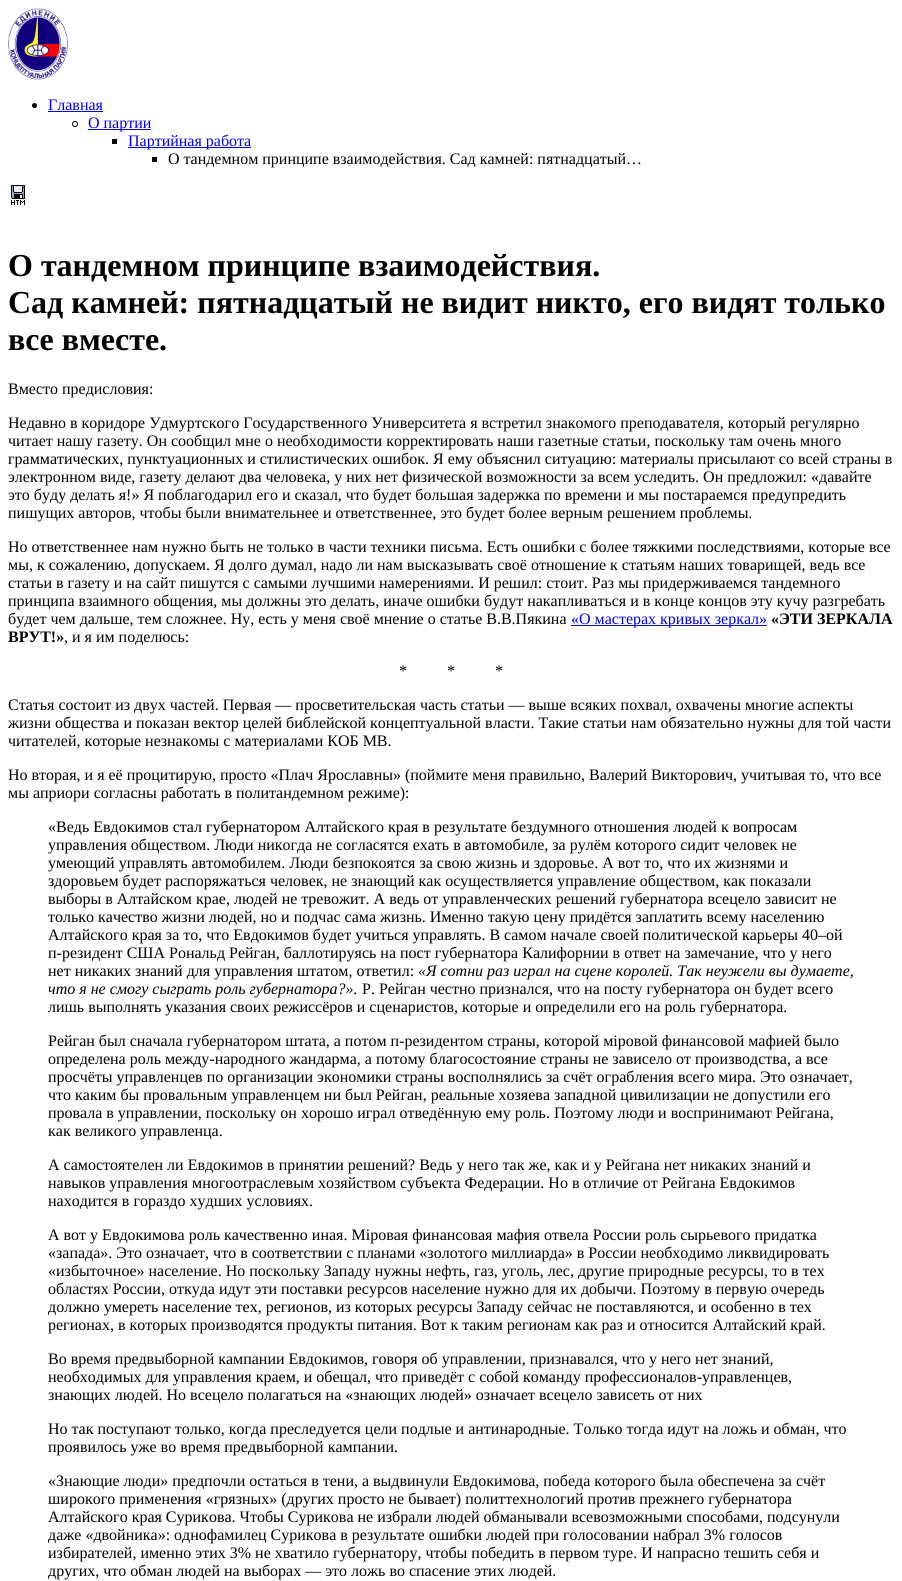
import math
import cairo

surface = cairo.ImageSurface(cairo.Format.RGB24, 902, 1581)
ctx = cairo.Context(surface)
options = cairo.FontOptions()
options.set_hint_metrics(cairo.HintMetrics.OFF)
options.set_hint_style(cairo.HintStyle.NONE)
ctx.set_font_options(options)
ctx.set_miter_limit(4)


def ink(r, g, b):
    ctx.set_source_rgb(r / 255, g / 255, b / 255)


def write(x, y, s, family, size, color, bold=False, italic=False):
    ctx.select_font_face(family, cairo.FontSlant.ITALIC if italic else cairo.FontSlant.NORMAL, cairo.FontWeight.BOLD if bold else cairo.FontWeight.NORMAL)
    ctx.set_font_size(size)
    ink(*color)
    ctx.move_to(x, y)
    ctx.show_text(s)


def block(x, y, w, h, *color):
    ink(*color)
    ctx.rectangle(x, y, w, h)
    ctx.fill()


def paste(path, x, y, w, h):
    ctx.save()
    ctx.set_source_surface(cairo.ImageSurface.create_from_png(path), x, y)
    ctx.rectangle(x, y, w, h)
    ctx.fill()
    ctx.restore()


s1 = dict(family="Liberation Serif", size=16, color=(0, 0, 238))
s2 = dict(family="Liberation Serif", size=16, color=(0, 0, 0))
s3 = dict(family="Liberation Serif", size=32, color=(0, 0, 0), bold=True)
s4 = dict(family="Liberation Serif", size=16, color=(0, 0, 0), bold=True)
s5 = dict(family="Liberation Serif", size=16, color=(0, 0, 0), italic=True)

ink(255, 255, 255)
ctx.paint()
paste("pic1.png", 8, 8, 60, 72)
ink(0, 0, 0)
ctx.arc(34.5, 105.5, 2.5, 0, 2 * math.pi)
ctx.fill()
write(48, 110, "Главная", **s1)
block(48, 111, 55, 1, 0, 0, 238)
ctx.new_path()
ctx.arc(75, 124, 2.5, 0, 2 * math.pi)
ink(0, 0, 0)
ctx.set_line_width(1)
ctx.stroke()
block(88, 129, 63, 1, 0, 0, 238)
write(88, 128, "О партии", **s1)
block(112, 139, 5, 5, 0, 0, 0)
block(128, 147, 123, 1, 0, 0, 238)
write(128, 146, "Партийная работа", **s1)
block(152, 157, 5, 5, 0, 0, 0)
write(168, 164, "О тандемном принципе взаимодействия. Сад камней: пятнадцатый…", **s2)
paste("pic2.png", 11, 185, 14, 20)
write(8, 276, "О тандемном принципе взаимодействия.", **s3)
write(8, 313, "Сад камней: пятнадцатый не видит никто, его видят только", **s3)
write(8, 350, "все вместе.", **s3)
write(8, 394, "Вместо предисловия:", **s2)
write(8, 428, "Недавно в коридоре Удмуртского Государственного Университета я встретил знакомого преподавателя, который регулярно", **s2)
write(8, 446, "читает нашу газету. Он сообщил мне о необходимости корректировать наши газетные статьи, поскольку там очень много", **s2)
write(8, 464, "грамматических, пунктуационных и стилистических ошибок. Я ему объяснил ситуацию: материалы присылают со всей страны в", **s2)
write(8, 482, "электронном виде, газету делают два человека, у них нет физической возможности за всем уследить. Он предложил: «давайте", **s2)
write(8, 500, "это буду делать я!» Я поблагодарил его и сказал, что будет большая задержка по времени и мы постараемся предупредить", **s2)
write(8, 518, "пишущих авторов, чтобы были внимательнее и ответственнее, это будет более верным решением проблемы.", **s2)
write(8, 552, "Но ответственнее нам нужно быть не только в части техники письма. Есть ошибки с более тяжкими последствиями, которые все", **s2)
write(8, 570, "мы, к сожалению, допускаем. Я долго думал, надо ли нам высказывать своё отношение к статьям наших товарищей, ведь все", **s2)
write(8, 588, "статьи в газету и на сайт пишутся с самыми лучшими намерениями. И решил: стоит. Раз мы придерживаемся тандемного", **s2)
write(8, 606, "принципа взаимного общения, мы должны это делать, иначе ошибки будут накапливаться и в конце концов эту кучу разгребать", **s2)
write(8, 624, "будет чем дальше, тем сложнее. Ну, есть у меня своё мнение о статье В.В.Пякина", **s2)
block(571, 625, 196, 1, 0, 0, 238)
write(571, 624, "«О мастерах кривых зеркал»", **s1)
write(771, 624, "«ЭТИ ЗЕРКАЛА", **s4)
write(8, 642, "ВРУТ!»", **s4)
write(64, 642, ", и я им поделюсь:", **s2)
write(399, 676, "*          *          *", **s2)
write(8, 710, "Статья состоит из двух частей. Первая — просветительская часть статьи — выше всяких похвал, охвачены многие аспекты", **s2)
write(8, 728, "жизни общества и показан вектор целей библейской концептуальной власти. Такие статьи нам обязательно нужны для той части", **s2)
write(8, 746, "читателей, которые незнакомы с материалами КОБ МВ.", **s2)
write(8, 780, "Но вторая, и я её процитирую, просто «Плач Ярославны» (поймите меня правильно, Валерий Викторович, учитывая то, что все", **s2)
write(8, 798, "мы априори согласны работать в политандемном режиме):", **s2)
write(48, 832, "«Ведь Евдокимов стал губернатором Алтайского края в результате бездумного отношения людей к вопросам", **s2)
write(48, 850, "управления обществом. Люди никогда не согласятся ехать в автомобиле, за рулём которого сидит человек не", **s2)
write(48, 868, "умеющий управлять автомобилем. Люди безпокоятся за свою жизнь и здоровье. А вот то, что их жизнями и", **s2)
write(48, 886, "здоровьем будет распоряжаться человек, не знающий как осуществляется управление обществом, как показали", **s2)
write(48, 904, "выборы в Алтайском крае, людей не тревожит. А ведь от управленческих решений губернатора всецело зависит не", **s2)
write(48, 922, "только качество жизни людей, но и подчас сама жизнь. Именно такую цену придётся заплатить всему населению", **s2)
write(48, 940, "Алтайского края за то, что Евдокимов будет учиться управлять. В самом начале своей политической карьеры 40–ой", **s2)
write(48, 958, "п-резидент США Рональд Рейган, баллотируясь на пост губернатора Калифорнии в ответ на замечание, что у него", **s2)
write(48, 976, "нет никаких знаний для управления штатом, ответил:", **s2)
write(418, 976, "«Я сотни раз играл на сцене королей. Так неужели вы думаете,", **s5)
write(48, 994, "что я не смогу сыграть роль губернатора?».", **s5)
write(362, 994, "Р. Рейган честно признался, что на посту губернатора он будет всего", **s2)
write(48, 1012, "лишь выполнять указания своих режиссёров и сценаристов, которые и определили его на роль губернатора.", **s2)
write(48, 1046, "Рейган был сначала губернатором штата, а потом п-резидентом страны, которой міровой финансовой мафией было", **s2)
write(48, 1064, "определена роль между-народного жандарма, а потому благосостояние страны не зависело от производства, а все", **s2)
write(48, 1082, "просчёты управленцев по организации экономики страны восполнялись за счёт ограбления всего мира. Это означает,", **s2)
write(48, 1100, "что каким бы провальным управленцем ни был Рейган, реальные хозяева западной цивилизации не допустили его", **s2)
write(48, 1118, "провала в управлении, поскольку он хорошо играл отведённую ему роль. Поэтому люди и воспринимают Рейгана,", **s2)
write(48, 1136, "как великого управленца.", **s2)
write(48, 1170, "А самостоятелен ли Евдокимов в принятии решений? Ведь у него так же, как и у Рейгана нет никаких знаний и", **s2)
write(48, 1188, "навыков управления многоотраслевым хозяйством субъекта Федерации. Но в отличие от Рейгана Евдокимов", **s2)
write(48, 1206, "находится в гораздо худших условиях.", **s2)
write(48, 1240, "А вот у Евдокимова роль качественно иная. Міровая финансовая мафия отвела России роль сырьевого придатка", **s2)
write(48, 1258, "«запада». Это означает, что в соответствии с планами «золотого миллиарда» в России необходимо ликвидировать", **s2)
write(48, 1276, "«избыточное» население. Но поскольку Западу нужны нефть, газ, уголь, лес, другие природные ресурсы, то в тех", **s2)
write(48, 1294, "областях России, откуда идут эти поставки ресурсов население нужно для их добычи. Поэтому в первую очередь", **s2)
write(48, 1312, "должно умереть население тех, регионов, из которых ресурсы Западу сейчас не поставляются, и особенно в тех", **s2)
write(48, 1330, "регионах, в которых производятся продукты питания. Вот к таким регионам как раз и относится Алтайский край.", **s2)
write(48, 1364, "Во время предвыборной кампании Евдокимов, говоря об управлении, признавался, что у него нет знаний,", **s2)
write(48, 1382, "необходимых для управления краем, и обещал, что приведёт с собой команду профессионалов-управленцев,", **s2)
write(48, 1400, "знающих людей. Но всецело полагаться на «знающих людей» означает всецело зависеть от них", **s2)
write(48, 1434, "Но так поступают только, когда преследуется цели подлые и антинародные. Только тогда идут на ложь и обман, что", **s2)
write(48, 1452, "проявилось уже во время предвыборной кампании.", **s2)
write(48, 1486, "«Знающие люди» предпочли остаться в тени, а выдвинули Евдокимова, победа которого была обеспечена за счёт", **s2)
write(48, 1504, "широкого применения «грязных» (других просто не бывает) политтехнологий против прежнего губернатора", **s2)
write(48, 1522, "Алтайского края Сурикова. Чтобы Сурикова не избрали людей обманывали всевозможными способами, подсунули", **s2)
write(48, 1540, "даже «двойника»: однофамилец Сурикова в результате ошибки людей при голосовании набрал 3% голосов", **s2)
write(48, 1558, "избирателей, именно этих 3% не хватило губернатору, чтобы победить в первом туре. И напрасно тешить себя и", **s2)
write(48, 1576, "других, что обман людей на выборах — это ложь во спасение этих людей.", **s2)
surface.write_to_png("screenshot.png")
